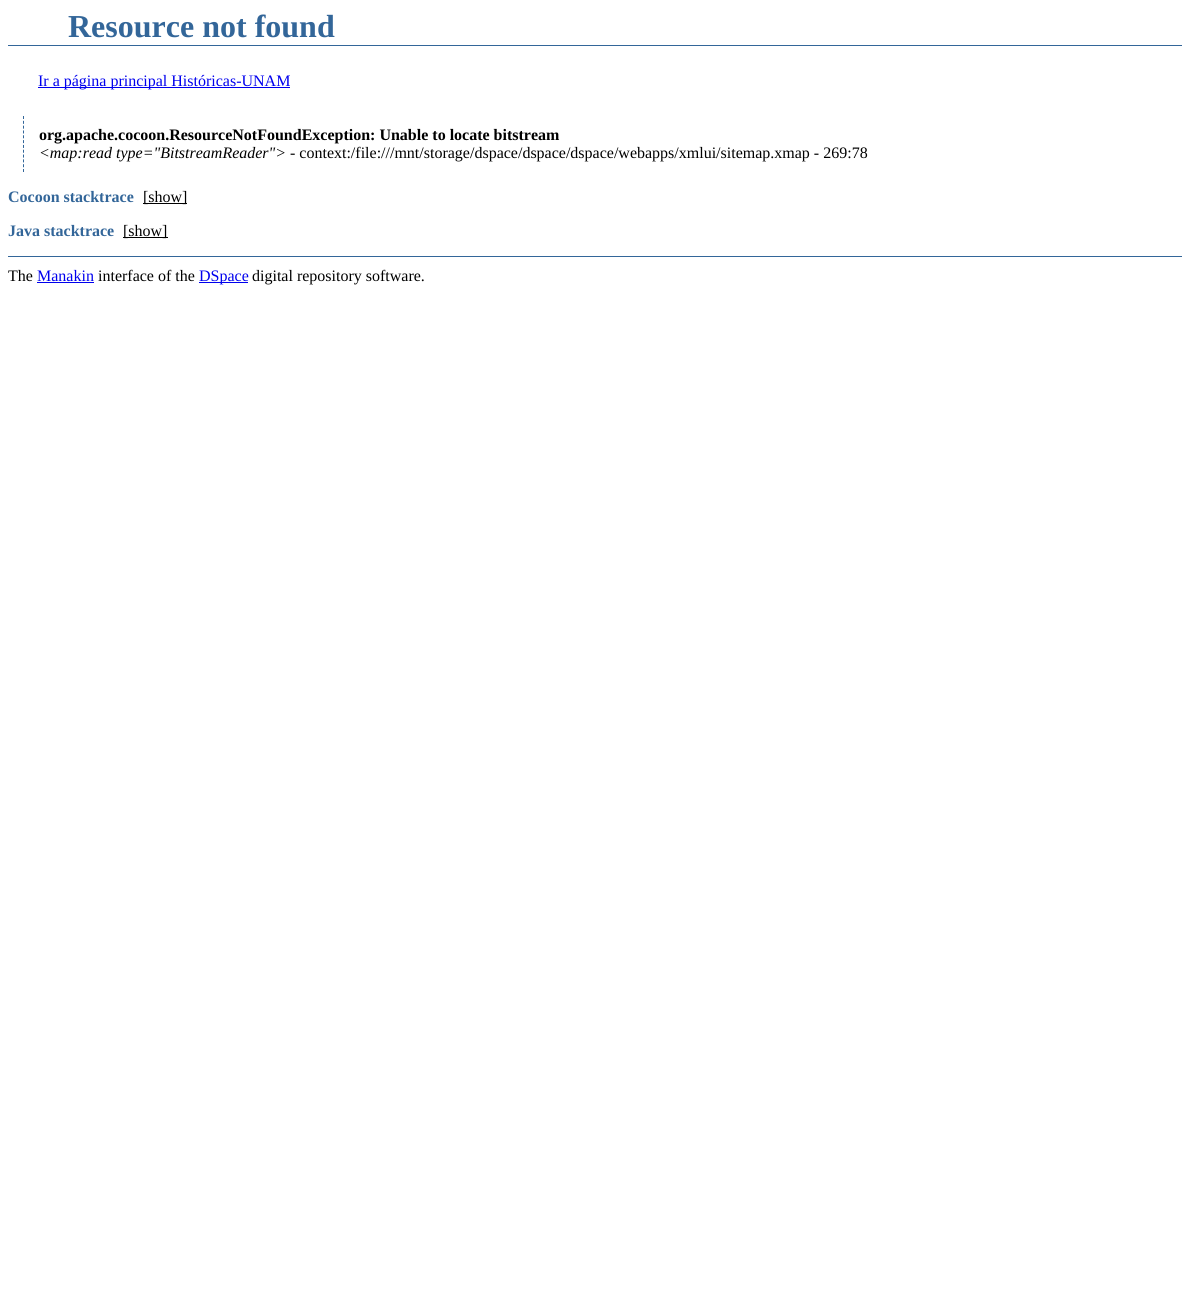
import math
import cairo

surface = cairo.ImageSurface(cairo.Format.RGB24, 1190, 1308)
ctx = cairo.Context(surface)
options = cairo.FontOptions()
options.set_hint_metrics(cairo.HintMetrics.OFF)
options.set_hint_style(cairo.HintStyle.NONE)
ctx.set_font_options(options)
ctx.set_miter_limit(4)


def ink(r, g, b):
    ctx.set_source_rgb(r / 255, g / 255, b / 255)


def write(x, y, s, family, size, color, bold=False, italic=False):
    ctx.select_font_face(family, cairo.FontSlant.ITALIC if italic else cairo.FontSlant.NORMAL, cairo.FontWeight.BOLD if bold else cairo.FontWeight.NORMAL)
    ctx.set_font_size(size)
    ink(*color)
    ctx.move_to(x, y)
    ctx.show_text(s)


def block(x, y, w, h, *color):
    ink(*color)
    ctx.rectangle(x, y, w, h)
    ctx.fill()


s1 = dict(family="Liberation Serif", size=32, color=(51, 102, 153), bold=True)
s2 = dict(family="Liberation Serif", size=16, color=(0, 0, 238))
s3 = dict(family="Liberation Serif", size=16, color=(0, 0, 0), bold=True)
s4 = dict(family="Liberation Serif", size=16, color=(0, 0, 0), italic=True)
s5 = dict(family="Liberation Serif", size=16, color=(0, 0, 0))
s6 = dict(family="Liberation Serif", size=16, color=(51, 102, 153), bold=True)

ink(255, 255, 255)
ctx.paint()
block(8, 45, 1174, 1, 51, 102, 153)
write(68, 37, "Resource not found", **s1)
block(38, 87, 252, 1, 0, 0, 238)
write(38, 86, "Ir a página principal Históricas-UNAM", **s2)
ctx.new_path()
ctx.move_to(23.5, 116)
ctx.line_to(23.5, 172)
ink(51, 102, 153)
ctx.set_line_width(1)
ctx.set_dash([3, 1.82])
ctx.stroke()
write(39, 140, "org.apache.cocoon.ResourceNotFoundException: Unable to locate bitstream", **s3)
write(39, 158, "<map:read type=\"BitstreamReader\">", **s4)
write(290, 158, "- context:/file:///mnt/storage/dspace/dspace/dspace/webapps/xmlui/sitemap.xmap - 269:78", **s5)
write(8, 202, "Cocoon stacktrace", **s6)
block(143, 203, 44, 1, 0, 0, 0)
write(143, 202, "[show]", **s5)
write(8, 236, "Java stacktrace", **s6)
block(123, 237, 45, 1, 0, 0, 0)
write(123, 236, "[show]", **s5)
block(8, 256, 1174, 1, 51, 102, 153)
write(8, 281, "The", **s5)
write(37, 281, "Manakin", **s2)
block(37, 282, 57, 1, 0, 0, 238)
write(98, 281, "interface of the", **s5)
block(199, 282, 49, 1, 0, 0, 238)
write(199, 281, "DSpace", **s2)
write(252, 281, "digital repository software.", **s5)
surface.write_to_png("screenshot.png")
